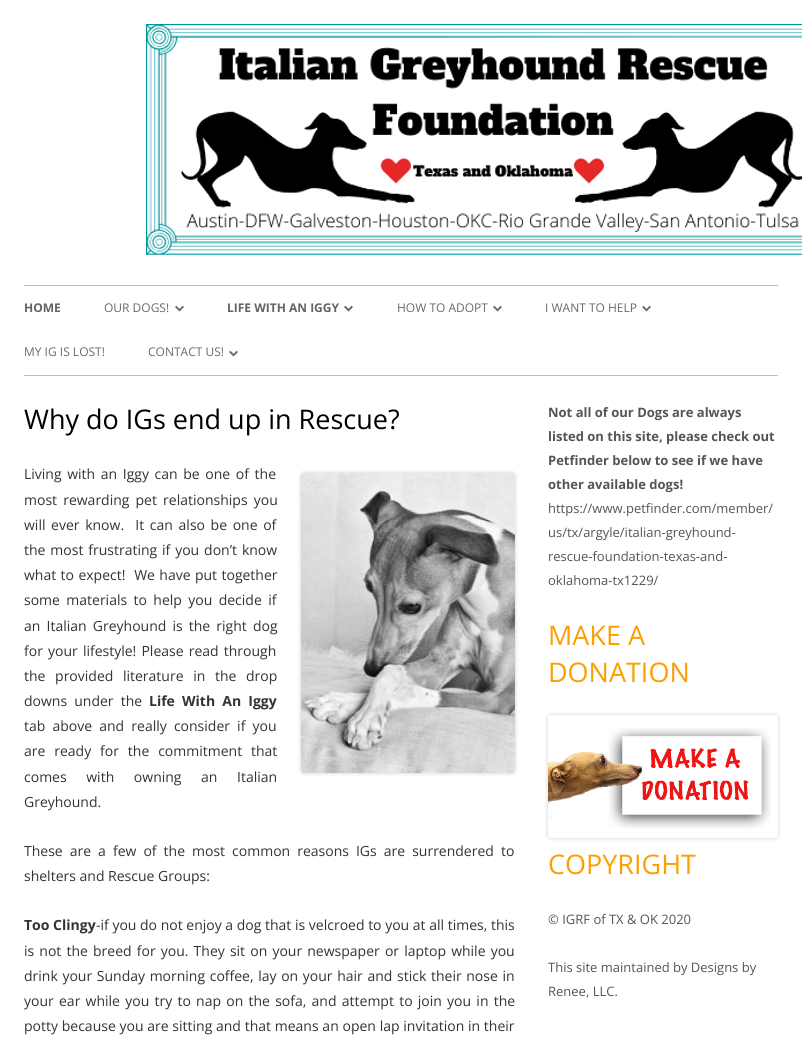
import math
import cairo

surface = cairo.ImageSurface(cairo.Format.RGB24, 802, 1039)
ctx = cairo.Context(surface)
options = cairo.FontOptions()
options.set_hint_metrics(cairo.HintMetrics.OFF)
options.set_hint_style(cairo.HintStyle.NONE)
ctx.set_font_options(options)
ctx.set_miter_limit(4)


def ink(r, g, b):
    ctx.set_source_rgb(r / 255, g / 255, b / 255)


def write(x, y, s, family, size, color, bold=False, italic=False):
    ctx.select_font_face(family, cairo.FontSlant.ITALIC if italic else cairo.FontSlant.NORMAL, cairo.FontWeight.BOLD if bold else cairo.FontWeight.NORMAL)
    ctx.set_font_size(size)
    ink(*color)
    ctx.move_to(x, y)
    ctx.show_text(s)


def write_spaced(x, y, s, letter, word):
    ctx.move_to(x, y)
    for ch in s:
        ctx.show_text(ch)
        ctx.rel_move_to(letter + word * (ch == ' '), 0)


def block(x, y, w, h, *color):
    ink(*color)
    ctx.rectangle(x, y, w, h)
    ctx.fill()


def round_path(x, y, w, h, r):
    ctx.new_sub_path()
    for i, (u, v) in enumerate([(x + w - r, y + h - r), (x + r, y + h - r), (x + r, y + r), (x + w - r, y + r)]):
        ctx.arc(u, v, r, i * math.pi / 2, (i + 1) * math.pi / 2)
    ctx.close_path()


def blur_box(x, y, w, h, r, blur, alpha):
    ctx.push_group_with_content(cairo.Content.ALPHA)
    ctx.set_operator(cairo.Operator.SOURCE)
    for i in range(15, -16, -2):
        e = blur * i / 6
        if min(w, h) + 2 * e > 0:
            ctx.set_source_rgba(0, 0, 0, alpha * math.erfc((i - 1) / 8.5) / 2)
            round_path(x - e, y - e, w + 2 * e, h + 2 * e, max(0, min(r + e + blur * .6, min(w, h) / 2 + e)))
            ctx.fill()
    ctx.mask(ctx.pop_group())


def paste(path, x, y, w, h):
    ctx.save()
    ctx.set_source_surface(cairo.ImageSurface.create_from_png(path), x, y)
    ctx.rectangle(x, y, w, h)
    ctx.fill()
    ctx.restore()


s1 = dict(family="Open Sans", size=12, color=(99, 99, 99), bold=True)
s2 = dict(family="Open Sans", size=12, color=(106, 106, 106))
s3 = dict(family="Open Sans", size=27, color=(0, 0, 0))
s4 = dict(family="Open Sans", size=14, color=(51, 51, 51))
s5 = dict(family="Open Sans", size=14, color=(51, 51, 51), bold=True)
s6 = dict(family="Open Sans", size=13, color=(85, 85, 85), bold=True)
s7 = dict(family="Open Sans", size=13, color=(85, 85, 85))
s8 = dict(family="Open Sans", size=27, color=(252, 159, 0))

ink(255, 255, 255)
ctx.paint()
paste("pic1.png", 146, 24, 656, 231)
block(24, 285, 754, 1, 187, 187, 187)
block(24, 375, 754, 1, 187, 187, 187)
write(24, 312, "HOME", **s1)
write(104, 312, "OUR DOGS!", **s2)
paste("pic2.png", 175, 305, 9, 7)
write(227, 312, "LIFE WITH AN IGGY", **s1)
paste("pic3.png", 344, 305, 9, 7)
write(397, 312, "HOW TO ADOPT", **s2)
paste("pic2.png", 493, 305, 9, 7)
write(545, 312, "I WANT TO HELP", **s2)
paste("pic2.png", 642, 305, 9, 7)
write(24, 356, "MY IG IS LOST!", **s2)
write(148, 356, "CONTACT US!", **s2)
paste("pic2.png", 229, 350, 9, 7)
write(24, 429, "Why do IGs end up in Rescue?", **s3)
ctx.set_font_size(14)
ink(51, 51, 51)
write_spaced(24, 479, "Living with an Iggy can be one of the", 0, 2)
ink(0, 0, 0)
blur_box(301, 473, 214, 300, 3, 2, 0.2)
paste("pic4.png", 301, 473, 214, 300)
ink(51, 51, 51)
write_spaced(24, 505, "most rewarding pet relationships you", 0, 2.5)
write_spaced(24, 530, "will ever know.  It can also be one of", 0, 2)
write_spaced(24, 555, "the most frustrating if you don’t know", 0, 1.25)
write_spaced(24, 580, "what to expect!  We have put together", 0, 0.75)
write_spaced(24, 605, "some materials to help you decide if", 0, 2.75)
write_spaced(24, 631, "an Italian Greyhound is the right dog", 0, 2.5)
write_spaced(24, 656, "for your lifestyle! Please read through", 0, 1.5)
write_spaced(24, 681, "the provided literature in the", 0, 6)
write(246, 681, "drop", **s4)
write_spaced(24, 706, "downs under the", 0, 3.5)
ctx.select_font_face("Open Sans", cairo.FontSlant.NORMAL, cairo.FontWeight.BOLD)
write_spaced(149, 706, "Life With An Iggy", 0, 3.5)
ctx.select_font_face("Open Sans")
write_spaced(24, 731, "tab above and really consider if you", 0, 3.5)
write_spaced(24, 756, "are ready for the commitment that", 0, 5.25)
write_spaced(24, 782, "comes with owning an Italian", 0, 16)
write(24, 807, "Greyhound.", **s4)
write_spaced(24, 856, "These are a few of the most common reasons IGs are surrendered to", 0, 3.4)
write(24, 881, "shelters and Rescue Groups:", **s4)
write(24, 930, "Too Clingy", **s5)
write(96, 930, "-if you do not enjoy a dog that is velcroed to you at all times, this", **s4)
write_spaced(24, 956, "is not the breed for you. They sit on your newspaper or laptop while you", 0, 1.5)
write_spaced(24, 981, "drink your Sunday morning coffee, lay on your hair and stick their nose in", 0, 1)
write_spaced(24, 1006, "your ear while you try to nap on the sofa, and attempt to join you in the", 0, 1.6)
write_spaced(24, 1031, "potty because you are sitting and that means an open lap invitation in their", 0, 0.1)
write(548, 417, "Not all of our Dogs are always", **s6)
write(548, 441, "listed on this site, please check out", **s6)
write(548, 465, "Petfinder below to see if we have", **s6)
write(548, 489, "other available dogs!", **s6)
write(548, 513, "https://www.petfinder.com/member/", **s7)
write(548, 537, "us/tx/argyle/italian-greyhound-", **s7)
write(548, 561, "rescue-foundation-texas-and-", **s7)
write(548, 585, "oklahoma-tx1229/", **s7)
write(548, 645, "MAKE A", **s8)
write(548, 682, "DONATION", **s8)
ctx.save()
ctx.set_fill_rule(cairo.FillRule.EVEN_ODD)
ctx.new_path()
ctx.move_to(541, 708)
ctx.line_to(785, 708)
ctx.line_to(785, 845)
ctx.line_to(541, 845)
ctx.close_path()
ctx.move_to(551, 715)
ctx.line_to(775, 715)
ctx.curve_to(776.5, 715, 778, 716.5, 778, 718)
ctx.line_to(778, 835)
ctx.curve_to(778, 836.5, 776.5, 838, 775, 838)
ctx.line_to(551, 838)
ctx.curve_to(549.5, 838, 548, 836.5, 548, 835)
ctx.line_to(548, 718)
ctx.curve_to(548, 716.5, 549.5, 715, 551, 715)
ctx.close_path()
ctx.clip()
ink(0, 0, 0)
blur_box(548, 715, 230, 123, 3, 2, 0.2)
ctx.restore()
paste("pic5.png", 548, 728, 223, 101)
write(548, 874, "COPYRIGHT", **s8)
write(548, 924, "© IGRF of TX & OK 2020", **s7)
write(548, 972, "This site maintained by Designs by", **s7)
write(548, 996, "Renee, LLC.", **s7)
surface.write_to_png("screenshot.png")
